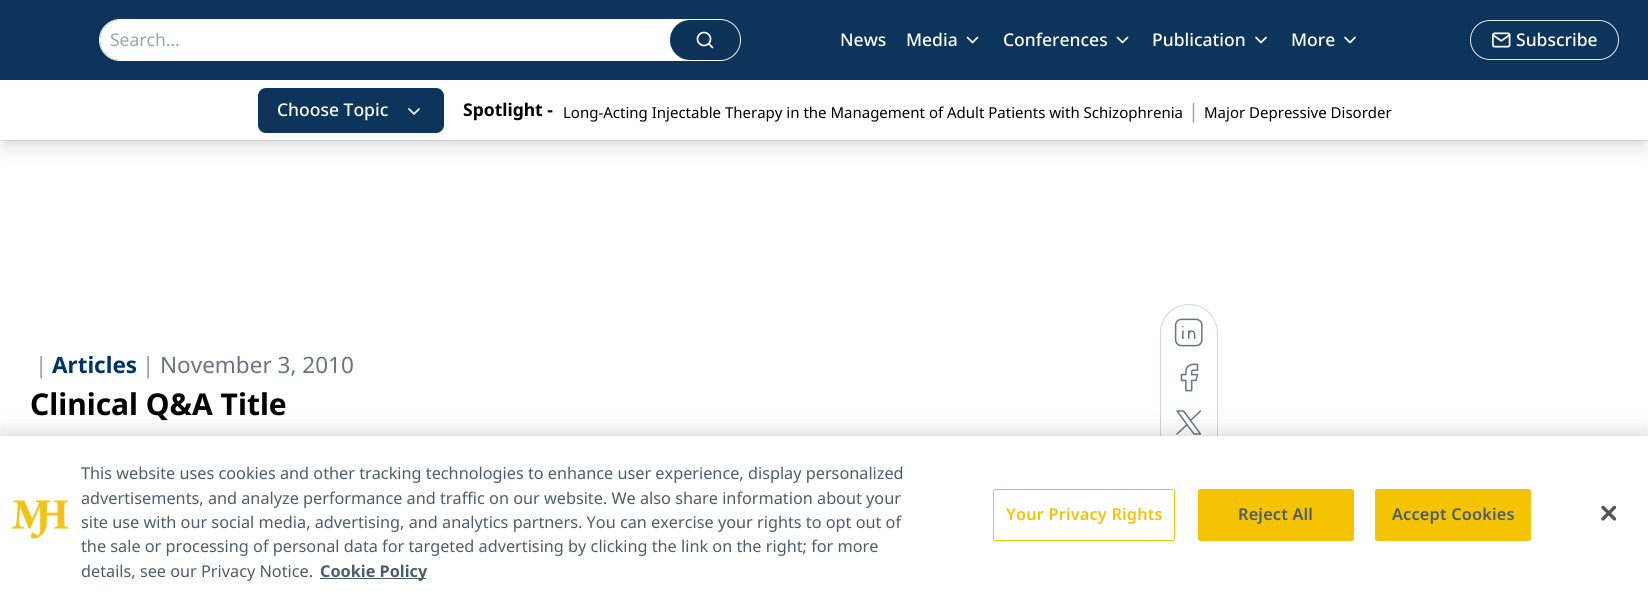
import math
import cairo

surface = cairo.ImageSurface(cairo.Format.RGB24, 1648, 596)
ctx = cairo.Context(surface)
options = cairo.FontOptions()
options.set_hint_metrics(cairo.HintMetrics.OFF)
options.set_hint_style(cairo.HintStyle.NONE)
ctx.set_font_options(options)
ctx.set_miter_limit(4)


def ink(r, g, b):
    ctx.set_source_rgb(r / 255, g / 255, b / 255)


def write(x, y, s, family, size, color, bold=False, italic=False):
    ctx.select_font_face(family, cairo.FontSlant.ITALIC if italic else cairo.FontSlant.NORMAL, cairo.FontWeight.BOLD if bold else cairo.FontWeight.NORMAL)
    ctx.set_font_size(size)
    ink(*color)
    ctx.move_to(x, y)
    ctx.show_text(s)


def write_spaced(x, y, s, letter, word):
    ctx.move_to(x, y)
    for ch in s:
        ctx.show_text(ch)
        ctx.rel_move_to(letter + word * (ch == ' '), 0)


def block(x, y, w, h, *color):
    ink(*color)
    ctx.rectangle(x, y, w, h)
    ctx.fill()


def round_path(x, y, w, h, r):
    ctx.new_sub_path()
    for i, (u, v) in enumerate([(x + w - r, y + h - r), (x + r, y + h - r), (x + r, y + r), (x + w - r, y + r)]):
        ctx.arc(u, v, r, i * math.pi / 2, (i + 1) * math.pi / 2)
    ctx.close_path()


def blur_box(x, y, w, h, r, blur, alpha):
    ctx.push_group_with_content(cairo.Content.ALPHA)
    ctx.set_operator(cairo.Operator.SOURCE)
    for i in range(15, -16, -2):
        e = blur * i / 6
        if min(w, h) + 2 * e > 0:
            ctx.set_source_rgba(0, 0, 0, alpha * math.erfc((i - 1) / 8.5) / 2)
            round_path(x - e, y - e, w + 2 * e, h + 2 * e, max(0, min(r + e + blur * .6, min(w, h) / 2 + e)))
            ctx.fill()
    ctx.mask(ctx.pop_group())


def paste(path, x, y, w, h):
    ctx.save()
    ctx.set_source_surface(cairo.ImageSurface.create_from_png(path), x, y)
    ctx.rectangle(x, y, w, h)
    ctx.fill()
    ctx.restore()


s1 = dict(family="Noto Sans", size=17.5, color=(156, 163, 175))
s2 = dict(family="Noto Sans Medium", size=17.5, color=(255, 255, 255))
s3 = dict(family="Noto Sans", size=17.5, color=(0, 0, 0), bold=True)
s4 = dict(family="Noto Sans", size=15, color=(0, 0, 0))
s5 = dict(family="Noto Sans", size=20, color=(156, 163, 175))
s6 = dict(family="Noto Sans Light", size=22.5, color=(107, 114, 128))
s7 = dict(family="Noto Sans", size=22.5, color=(0, 51, 102), bold=True)
s8 = dict(family="Noto Sans", size=22.5, color=(107, 114, 128))
s9 = dict(family="Noto Sans", size=30, color=(0, 0, 0), bold=True)
s10 = dict(family="Noto Sans", size=16.25, color=(76, 92, 107))
s11 = dict(family="Noto Sans", size=16.25, color=(76, 92, 107), bold=True)

ink(255, 255, 255)
ctx.paint()
block(0, 0, 1648, 80, 13, 52, 90)
block(0, 140, 1648, 1, 229, 231, 235)
round_path(99.5, 19.5, 641, 41, 20.5)
ink(255, 255, 255)
ctx.set_line_width(1)
ctx.stroke()
round_path(100, 20, 640, 40, 20)
ctx.fill()
write(110, 46, "Search...", **s1)
ink(13, 51, 89)
round_path(670, 20, 70, 40, 20)
ctx.fill()
ctx.arc(704, 39, 6.5, 0, 2 * math.pi)
ink(255, 255, 255)
ctx.set_line_width(1.7)
ctx.stroke()
ctx.new_path()
ctx.move_to(712.5, 47.5)
ctx.line_to(709, 44)
ctx.set_line_cap(cairo.LineCap.ROUND)
ctx.set_line_join(cairo.LineJoin.ROUND)
ctx.stroke()
write(840, 46, "News", **s2)
write(906, 46, "Media", **s2)
ctx.new_path()
ctx.move_to(967.5, 37.5)
ctx.line_to(972.5, 42.5)
ctx.line_to(977.5, 37.5)
ctx.stroke()
write(1003, 46, "Conferences", **s2)
ctx.new_path()
ctx.move_to(1117.5, 37.5)
ctx.line_to(1122.5, 42.5)
ctx.line_to(1127.5, 37.5)
ctx.stroke()
write(1152, 46, "Publication", **s2)
ctx.new_path()
ctx.move_to(1256, 37.5)
ctx.line_to(1261, 42.5)
ctx.line_to(1266, 37.5)
ctx.stroke()
write(1291, 46, "More", **s2)
ctx.new_path()
ctx.move_to(1345, 37.5)
ctx.line_to(1350, 42.5)
ctx.line_to(1355, 37.5)
ctx.stroke()
round_path(1470.5, 20.5, 148, 39, 19.5)
ink(229, 231, 235)
ctx.set_line_width(1)
ctx.set_line_cap(cairo.LineCap.BUTT)
ctx.set_line_join(cairo.LineJoin.MITER)
ctx.stroke()
paste("pic1.png", 1492, 32, 19, 16)
write(1516, 46, "Subscribe", **s2)
ink(0, 0, 0)
blur_box(5, 90, 1639, 50, 0, 4, 0.1)
blur_box(4, 96, 1641, 53, 0, 9.5, 0.1)
block(0, 82, 1648, 58, 255, 255, 255)
ink(13, 52, 90)
round_path(258, 88, 186, 45, 8)
ctx.fill()
write(277, 116, "Choose Topic", **s2)
ctx.new_path()
ctx.move_to(409, 109)
ctx.line_to(414, 114)
ctx.line_to(419, 109)
ctx.set_line_width(1.7)
ctx.set_line_cap(cairo.LineCap.ROUND)
ctx.set_line_join(cairo.LineJoin.ROUND)
ctx.stroke()
write(463, 116, "Spotlight -", **s3)
write(563, 118, "Long-Acting Injectable Therapy in the Management of Adult Patients with Schizophrenia", **s4)
write(1188, 118, "|", **s5)
write(1204, 118, "Major Depressive Disorder", **s4)
write(35, 373, "|", **s6)
write(52, 373, "Articles", **s7)
write(142, 373, "|", **s6)
write(160, 373, "November 3, 2010", **s8)
write(30, 415, "Clinical Q&A Title", **s9)
round_path(1160.5, 304.5, 57, 236, 28.5)
ink(209, 213, 219)
ctx.set_line_width(1)
ctx.set_line_cap(cairo.LineCap.BUTT)
ctx.set_line_join(cairo.LineJoin.MITER)
ctx.stroke()
paste("pic2.png", 1174, 318, 29, 29)
paste("pic3.png", 1180, 363, 19, 29)
ctx.new_path()
ctx.move_to(1177, 411)
ctx.line_to(1194, 434)
ctx.line_to(1200.5, 434)
ctx.line_to(1183.5, 411)
ctx.close_path()
ctx.move_to(1177, 434)
ctx.line_to(1187, 424.5)
ctx.move_to(1190.5, 420.5)
ctx.line_to(1200.5, 411)
ink(107, 114, 128)
ctx.set_line_width(1.5)
ctx.set_line_cap(cairo.LineCap.ROUND)
ctx.set_line_join(cairo.LineJoin.ROUND)
ctx.stroke()
ink(0, 0, 0)
blur_box(0, 436, 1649, 160, 0, 11, 0.2)
block(0, 436, 1648, 160, 255, 255, 255)
paste("pic4.png", 11, 499, 58, 41)
write(81, 479, "This website uses cookies and other tracking technologies to enhance user experience, display personalized", **s10)
write(81, 504, "advertisements, and analyze performance and traffic on our website. We also share information about your", **s10)
write(81, 528, "site use with our social media, advertising, and analytics partners. You can exercise your rights to opt out of", **s10)
write(81, 552, "the sale or processing of personal data for targeted advertising by clicking the link on the right; for more", **s10)
write(81, 577, "details, see our Privacy Notice.", **s10)
block(320, 578, 106, 1, 76, 92, 107)
write(320, 577, "Cookie Policy", **s11)
round_path(993.5, 489.5, 181, 51, 2)
ink(244, 196, 4)
ctx.set_line_width(1)
ctx.set_line_cap(cairo.LineCap.BUTT)
ctx.set_line_join(cairo.LineJoin.MITER)
ctx.stroke()
ctx.select_font_face("Noto Sans SemiBold")
write_spaced(1006, 520, "Your Privacy Rights", 0.2, 0)
round_path(1198.5, 489.5, 155, 51, 2)
ctx.fill_preserve()
ctx.stroke()
ink(76, 92, 107)
write_spaced(1238, 520, "Reject All", 0.2, 0)
ink(244, 196, 4)
round_path(1375.5, 489.5, 155, 51, 2)
ctx.fill_preserve()
ctx.stroke()
ink(76, 92, 107)
write_spaced(1392, 520, "Accept Cookies", 0.2, 0)
paste("pic5.png", 1601, 506, 15, 15)
surface.write_to_png("screenshot.png")
